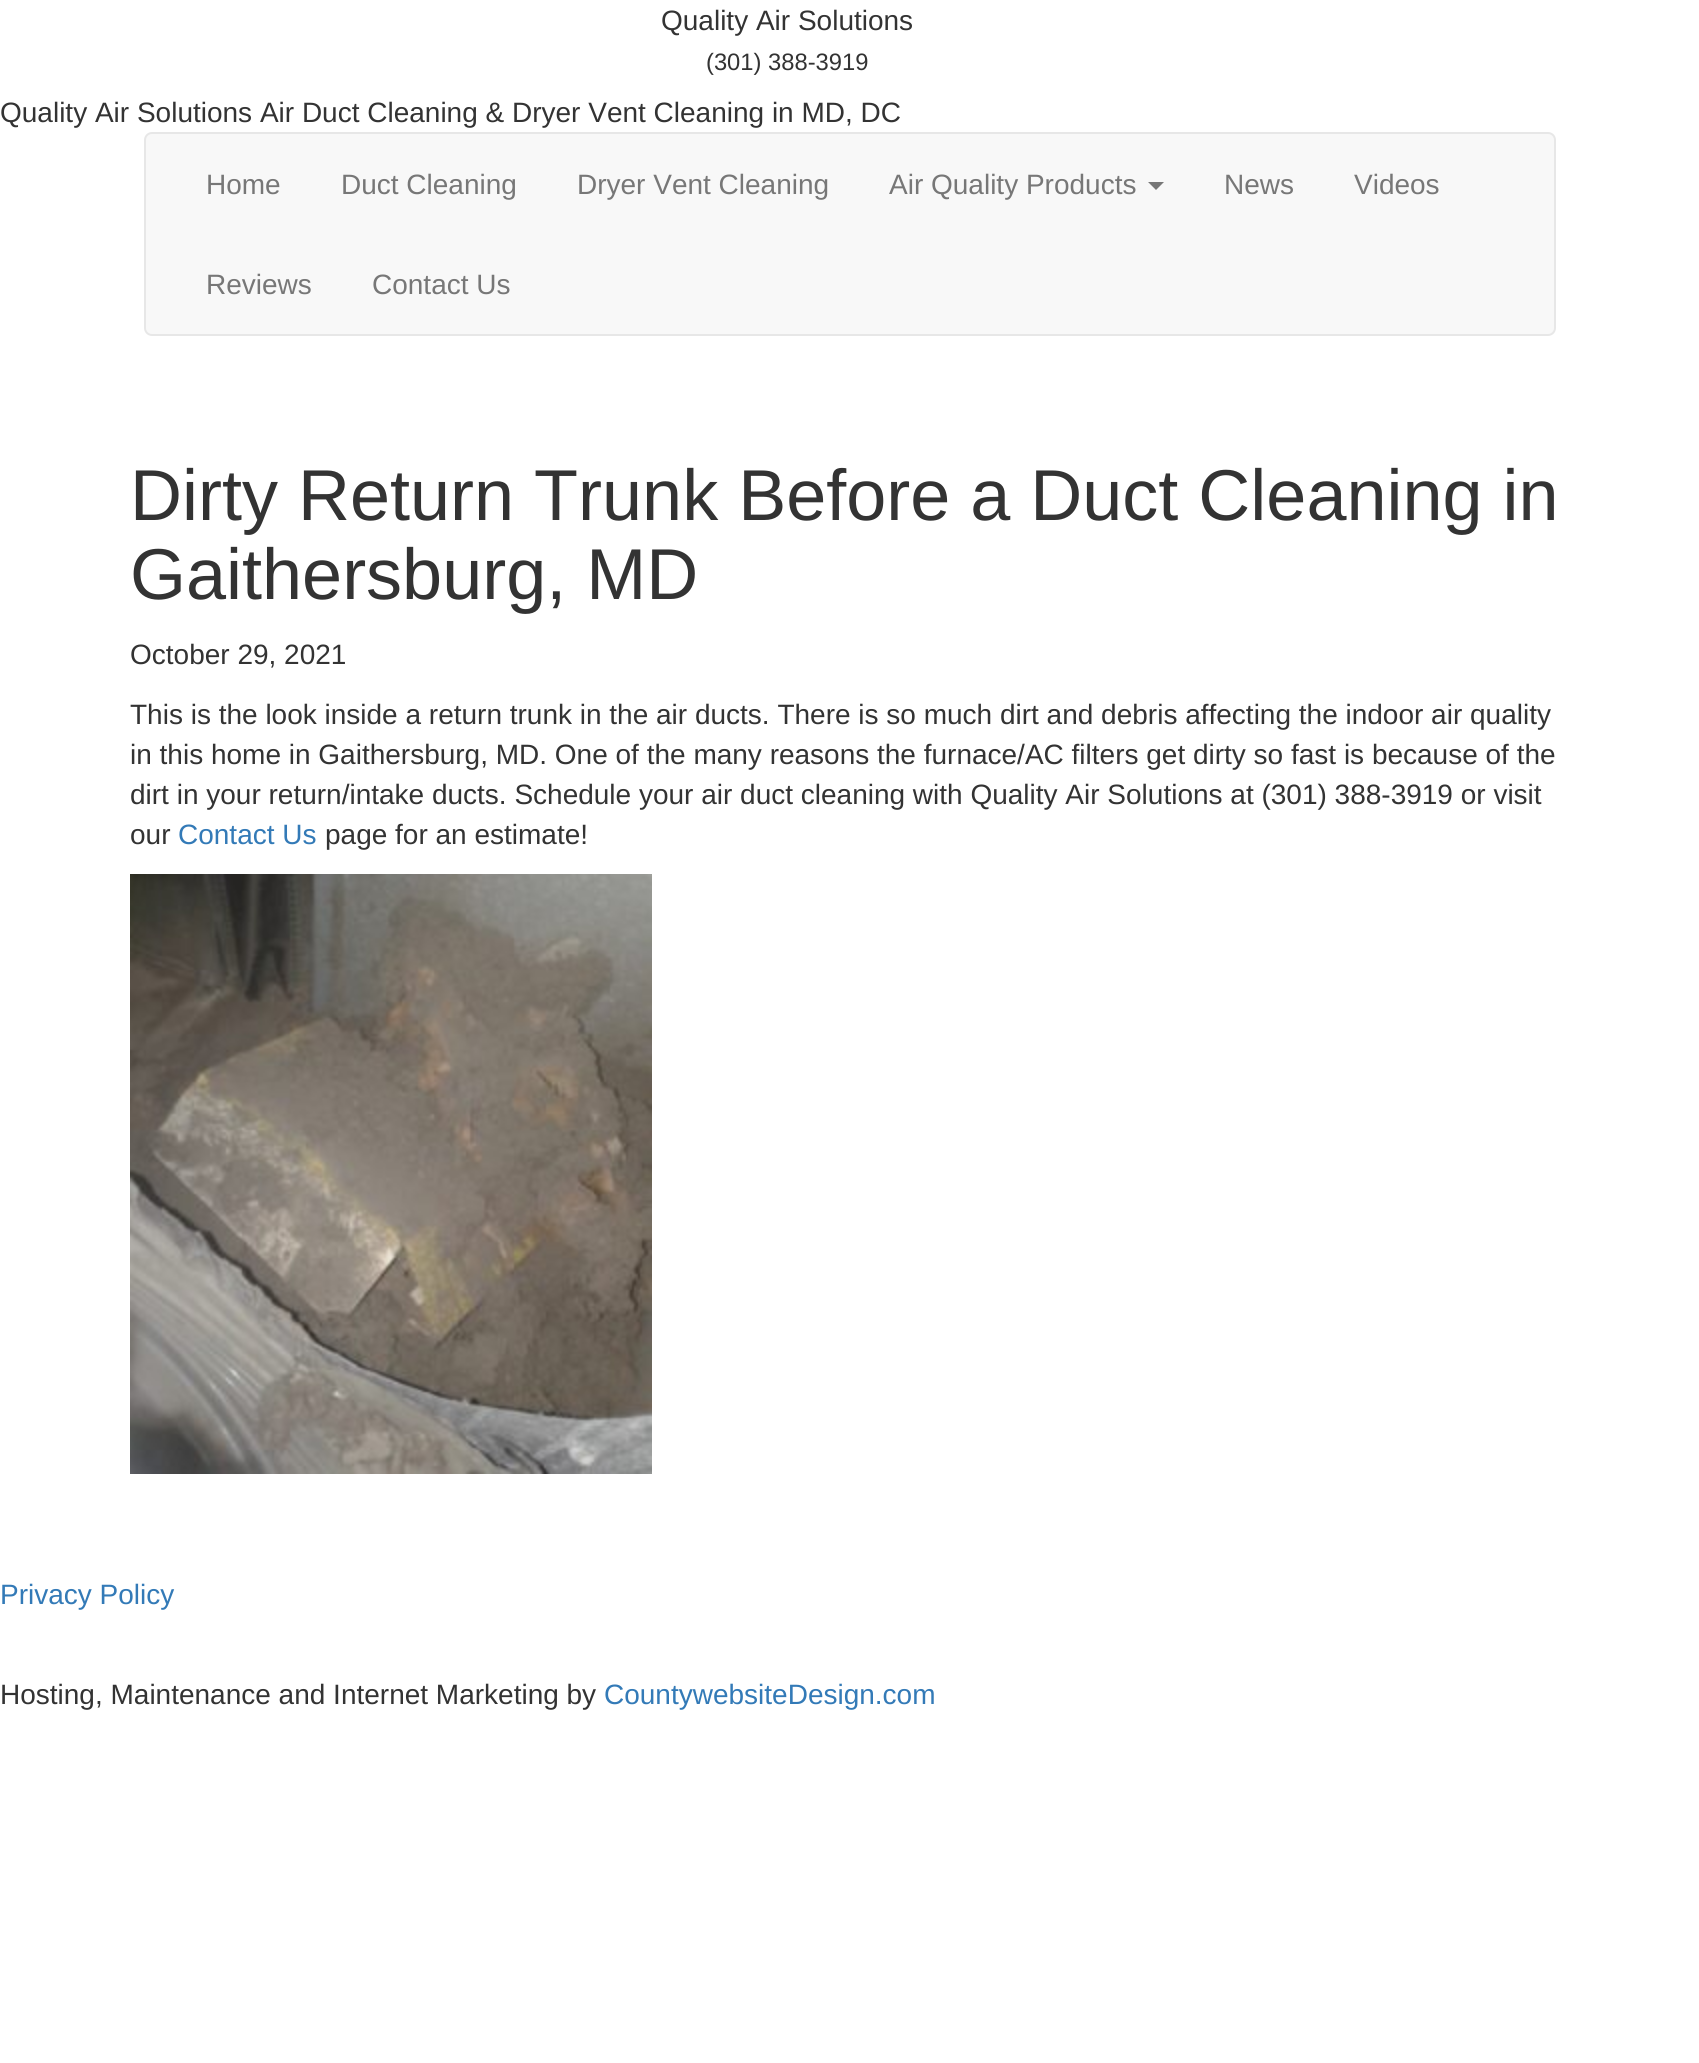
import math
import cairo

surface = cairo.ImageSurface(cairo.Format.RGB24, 1699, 2063)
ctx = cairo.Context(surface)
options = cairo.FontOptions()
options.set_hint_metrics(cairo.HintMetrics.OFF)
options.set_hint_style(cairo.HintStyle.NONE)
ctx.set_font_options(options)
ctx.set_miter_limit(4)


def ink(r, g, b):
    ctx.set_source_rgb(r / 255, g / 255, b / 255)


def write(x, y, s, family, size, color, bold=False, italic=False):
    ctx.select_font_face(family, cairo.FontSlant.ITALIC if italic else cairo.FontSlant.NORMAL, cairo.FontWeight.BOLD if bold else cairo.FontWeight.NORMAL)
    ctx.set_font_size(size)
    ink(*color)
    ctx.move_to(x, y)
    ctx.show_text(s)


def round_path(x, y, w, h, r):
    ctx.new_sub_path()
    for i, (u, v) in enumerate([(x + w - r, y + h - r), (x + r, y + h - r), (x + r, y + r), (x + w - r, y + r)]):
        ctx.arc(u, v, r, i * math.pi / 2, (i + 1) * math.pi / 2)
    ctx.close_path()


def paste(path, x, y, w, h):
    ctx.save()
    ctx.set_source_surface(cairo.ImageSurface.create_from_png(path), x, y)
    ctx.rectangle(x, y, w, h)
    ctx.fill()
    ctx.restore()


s1 = dict(family="Liberation Sans", size=28, color=(51, 51, 51))
s2 = dict(family="Liberation Sans", size=23.75, color=(51, 51, 51))
s3 = dict(family="Liberation Sans", size=28, color=(119, 119, 119))
s4 = dict(family="Liberation Sans", size=72, color=(51, 51, 51))
s5 = dict(family="Liberation Sans", size=28, color=(51, 122, 183))

ink(255, 255, 255)
ctx.paint()
write(661, 30, "Quality Air Solutions", **s1)
write(706, 70, "(301) 388-3919", **s2)
write(0, 122, "Quality Air Solutions Air Duct Cleaning & Dryer Vent Cleaning in MD, DC", **s1)
ink(248, 248, 248)
round_path(145, 133, 1410, 202, 7)
ctx.fill_preserve()
ink(231, 231, 231)
ctx.stroke()
write(206, 194, "Home", **s3)
write(341, 194, "Duct Cleaning", **s3)
write(577, 194, "Dryer Vent Cleaning", **s3)
write(889, 194, "Air Quality Products", **s3)
ctx.new_path()
ctx.move_to(1148, 182)
ctx.line_to(1164, 182)
ctx.line_to(1156, 190)
ctx.close_path()
ctx.fill()
write(1224, 194, "News", **s3)
write(1354, 194, "Videos", **s3)
write(206, 294, "Reviews", **s3)
write(372, 294, "Contact Us", **s3)
write(130, 520, "Dirty Return Trunk Before a Duct Cleaning in", **s4)
write(130, 599, "Gaithersburg, MD", **s4)
write(130, 664, "October 29, 2021", **s1)
write(130, 724, "This is the look inside a return trunk in the air ducts. There is so much dirt and debris affecting the indoor air quality", **s1)
write(130, 764, "in this home in Gaithersburg, MD. One of the many reasons the furnace/AC filters get dirty so fast is because of the", **s1)
write(130, 804, "dirt in your return/intake ducts. Schedule your air duct cleaning with Quality Air Solutions at (301) 388-3919 or visit", **s1)
write(130, 844, "our", **s1)
write(178, 844, "Contact Us", **s5)
write(325, 844, "page for an estimate!", **s1)
paste("pic1.png", 130, 874, 522, 600)
write(0, 1604, "Privacy Policy", **s5)
write(0, 1704, "Hosting, Maintenance and Internet Marketing by", **s1)
write(604, 1704, "CountywebsiteDesign.com", **s5)
surface.write_to_png("screenshot.png")
